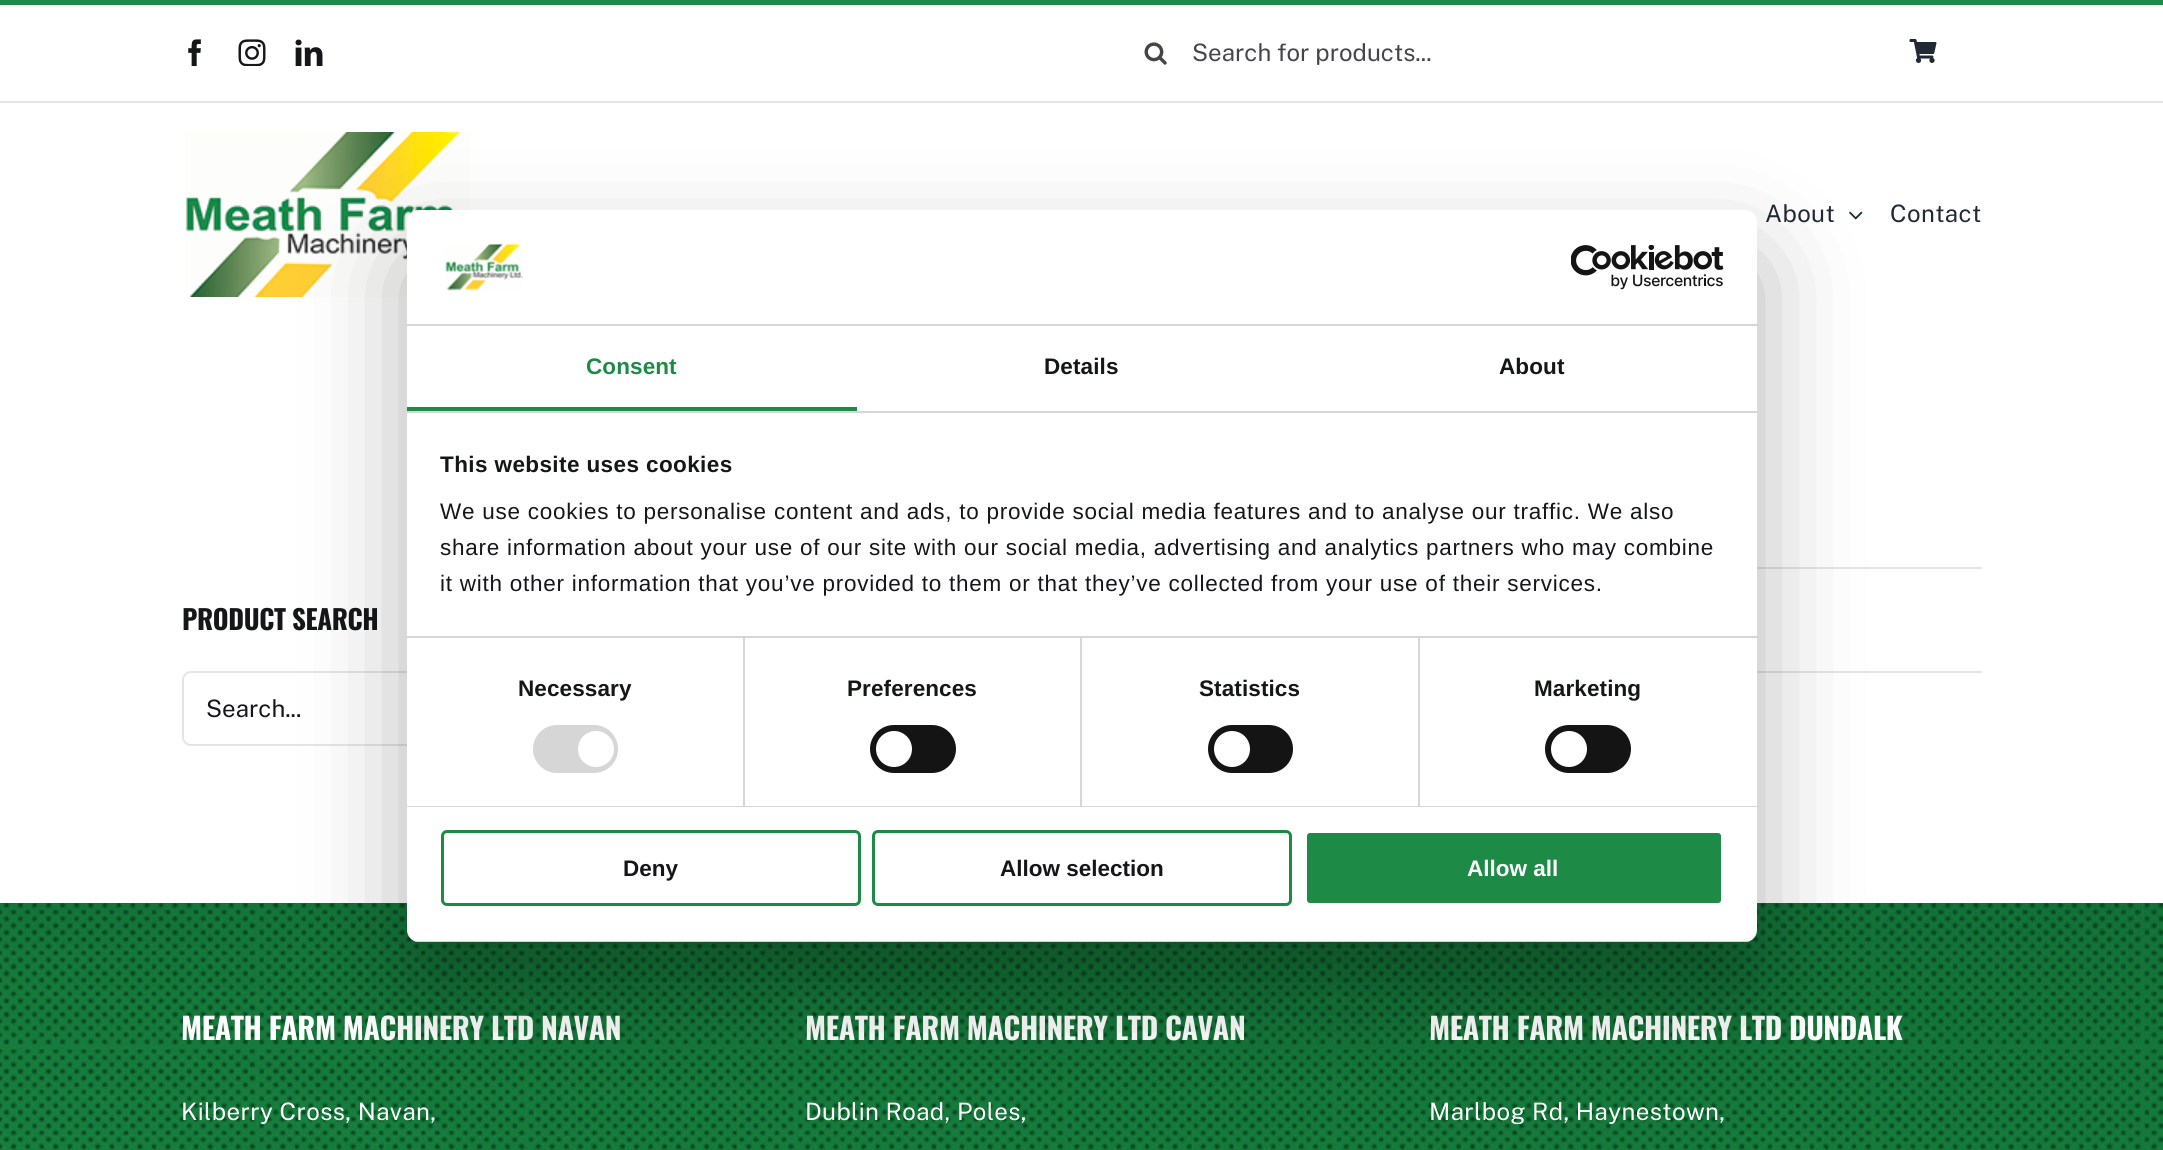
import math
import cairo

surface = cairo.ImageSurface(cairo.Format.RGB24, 2163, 1150)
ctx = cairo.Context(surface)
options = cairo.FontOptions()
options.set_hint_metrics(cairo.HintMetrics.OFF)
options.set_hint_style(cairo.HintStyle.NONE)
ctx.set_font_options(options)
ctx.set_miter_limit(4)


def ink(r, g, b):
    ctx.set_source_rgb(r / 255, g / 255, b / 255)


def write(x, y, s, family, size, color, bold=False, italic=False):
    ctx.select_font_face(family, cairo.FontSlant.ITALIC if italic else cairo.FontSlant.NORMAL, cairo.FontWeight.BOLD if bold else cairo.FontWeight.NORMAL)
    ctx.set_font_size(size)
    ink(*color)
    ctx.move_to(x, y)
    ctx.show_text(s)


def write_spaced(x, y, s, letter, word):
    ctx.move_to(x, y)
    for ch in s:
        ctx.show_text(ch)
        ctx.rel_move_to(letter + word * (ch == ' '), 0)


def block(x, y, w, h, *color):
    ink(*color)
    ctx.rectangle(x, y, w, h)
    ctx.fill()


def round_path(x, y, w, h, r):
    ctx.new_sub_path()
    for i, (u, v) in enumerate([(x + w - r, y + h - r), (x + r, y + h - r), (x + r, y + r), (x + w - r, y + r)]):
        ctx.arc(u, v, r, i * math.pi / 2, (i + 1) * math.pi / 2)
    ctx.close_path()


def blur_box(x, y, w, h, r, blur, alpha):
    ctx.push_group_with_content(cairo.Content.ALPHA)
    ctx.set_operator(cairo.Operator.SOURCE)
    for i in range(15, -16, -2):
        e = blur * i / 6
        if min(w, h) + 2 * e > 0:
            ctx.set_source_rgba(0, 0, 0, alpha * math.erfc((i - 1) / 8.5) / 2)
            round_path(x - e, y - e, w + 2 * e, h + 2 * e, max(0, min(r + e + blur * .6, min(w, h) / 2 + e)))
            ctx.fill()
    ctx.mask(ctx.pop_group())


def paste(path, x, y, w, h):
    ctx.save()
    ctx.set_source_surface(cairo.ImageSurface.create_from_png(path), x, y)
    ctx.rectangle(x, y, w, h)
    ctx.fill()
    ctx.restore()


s1 = dict(family="Public Sans", size=24, color=(67, 69, 73))
s2 = dict(family="Public Sans", size=24, color=(20, 22, 23))
s3 = dict(family="Liberation Sans", size=22.5, color=(20, 22, 23), bold=True)
s4 = dict(family="Liberation Sans", size=22.5, color=(255, 255, 255), bold=True)

ink(255, 255, 255)
ctx.paint()
block(0, 0, 2163, 5, 29, 139, 70)
paste("pic1.png", 188, 39, 13, 27)
paste("pic2.png", 238, 39, 28, 27)
paste("pic3.png", 295, 39, 28, 27)
paste("pic4.png", 1144, 42, 23, 23)
write(1192, 61, "Search for products...", **s1)
paste("pic5.png", 1909, 39, 28, 24)
block(0, 101, 2163, 2, 229, 229, 229)
paste("pic6.png", 185, 132, 285, 165)
ink(33, 41, 52)
write_spaced(1765, 222, "About", 0.4, 0)
paste("pic7.png", 1849, 211, 14, 9)
write_spaced(1890, 222, "Contact", 0.4, 0)
ctx.select_font_face("Oswald", cairo.FontSlant.NORMAL, cairo.FontWeight.BOLD)
ctx.set_font_size(27)
ink(20, 22, 23)
write_spaced(182, 630, "PRODUCT SEARCH", -0.4, 0)
round_path(183, 672, 430, 73, 8)
ink(229, 229, 229)
ctx.stroke()
write(206, 717, "Search...", **s2)
block(1757, 567, 225, 2, 229, 229, 229)
block(1757, 671, 225, 2, 229, 229, 229)
paste("pic8.png", 0, 903, 2163, 247)
ctx.select_font_face("Oswald", cairo.FontSlant.NORMAL, cairo.FontWeight.BOLD)
ctx.set_font_size(30)
ink(255, 255, 255)
write_spaced(181, 1040, "MEATH FARM MACHINERY LTD NAVAN", -0.45, 0)
ctx.select_font_face("Public Sans")
ctx.set_font_size(24)
write_spaced(181, 1120, "Kilberry Cross, Navan,", 0.4, 0)
ctx.select_font_face("Oswald", cairo.FontSlant.NORMAL, cairo.FontWeight.BOLD)
ctx.set_font_size(30)
write_spaced(805, 1040, "MEATH FARM MACHINERY LTD CAVAN", -0.45, 0)
ctx.select_font_face("Public Sans")
ctx.set_font_size(24)
write_spaced(805, 1120, "Dublin Road, Poles,", 0.4, 0)
ctx.select_font_face("Oswald", cairo.FontSlant.NORMAL, cairo.FontWeight.BOLD)
ctx.set_font_size(30)
write_spaced(1429, 1040, "MEATH FARM MACHINERY LTD DUNDALK", -0.45, 0)
ctx.select_font_face("Public Sans")
ctx.set_font_size(24)
write_spaced(1429, 1120, "Marlbog Rd, Haynestown,", 0.4, 0)
ink(0, 0, 0)
blur_box(407, 258, 1350, 732, 12, 51, 0.3)
ink(255, 255, 255)
round_path(407, 210, 1350, 732, 12)
ctx.fill()
block(407, 324, 1350, 2, 214, 214, 214)
paste("pic9.png", 445, 243, 78, 48)
paste("pic10.png", 1571, 245, 153, 45)
block(407, 411, 1350, 2, 214, 214, 214)
block(407, 407, 450, 4, 29, 139, 70)
ctx.select_font_face("Liberation Sans", cairo.FontSlant.NORMAL, cairo.FontWeight.BOLD)
ctx.set_font_size(22.5)
write_spaced(586, 374, "Consent", 0.1, 0)
ink(20, 22, 23)
write_spaced(1044, 374, "Details", 0.1, 0)
write_spaced(1499, 374, "About", 0.1, 0)
block(407, 636, 1350, 2, 214, 214, 214)
ink(20, 22, 23)
write_spaced(440, 472, "This website uses cookies", 0.4, 0)
ctx.select_font_face("Liberation Sans")
write_spaced(440, 519, "We use cookies to personalise content and ads, to provide social media features and to analyse our traffic. We also", 0.75, 0)
write_spaced(440, 555, "share information about your use of our site with our social media, advertising and analytics partners who may combine", 0.75, 0)
write_spaced(440, 591, "it with other information that you’ve provided to them or that they’ve collected from your use of their services.", 0.75, 0)
block(407, 806, 1350, 1, 214, 214, 214)
block(743, 638, 2, 168, 214, 214, 214)
ctx.select_font_face("Liberation Sans", cairo.FontSlant.NORMAL, cairo.FontWeight.BOLD)
ink(20, 22, 23)
write_spaced(518, 696, "Necessary", 0.1, 0)
ink(214, 214, 214)
round_path(533, 725, 85, 48, 24)
ctx.fill()
ink(255, 255, 255)
ctx.arc(596, 749, 18, 0, 2 * math.pi)
ctx.fill()
block(1080, 638, 2, 168, 214, 214, 214)
ink(20, 22, 23)
write_spaced(847, 696, "Preferences", 0.1, 0)
ink(20, 20, 20)
round_path(870, 725, 86, 48, 24)
ctx.fill()
ink(255, 255, 255)
ctx.arc(894, 749, 18, 0, 2 * math.pi)
ctx.fill()
block(1418, 638, 2, 168, 214, 214, 214)
ink(20, 22, 23)
write_spaced(1199, 696, "Statistics", 0.1, 0)
ink(20, 20, 20)
round_path(1208, 725, 85, 48, 24)
ctx.fill()
ink(255, 255, 255)
ctx.arc(1232, 749, 18, 0, 2 * math.pi)
ctx.fill()
ink(20, 22, 23)
write_spaced(1534, 696, "Marketing", 0.1, 0)
ink(20, 20, 20)
round_path(1545, 725, 86, 48, 24)
ctx.fill()
ink(255, 255, 255)
ctx.arc(1569, 749, 18, 0, 2 * math.pi)
ctx.fill()
ctx.save()
round_path(407, 210, 1350, 732, 12)
ctx.clip()
block(407, 941, 1350, 1, 214, 214, 214)
ctx.restore()
round_path(442.5, 831.5, 417, 73, 4.5)
ink(29, 139, 70)
ctx.set_line_width(3)
ctx.stroke()
write(623, 876, "Deny", **s3)
round_path(873.5, 831.5, 417, 73, 4.5)
ink(29, 139, 70)
ctx.stroke()
write(1000, 876, "Allow selection", **s3)
ink(29, 139, 70)
round_path(1305.5, 831.5, 417, 73, 4.5)
ctx.fill_preserve()
ink(255, 255, 255)
ctx.stroke()
write(1467, 876, "Allow all", **s4)
surface.write_to_png("screenshot.png")
